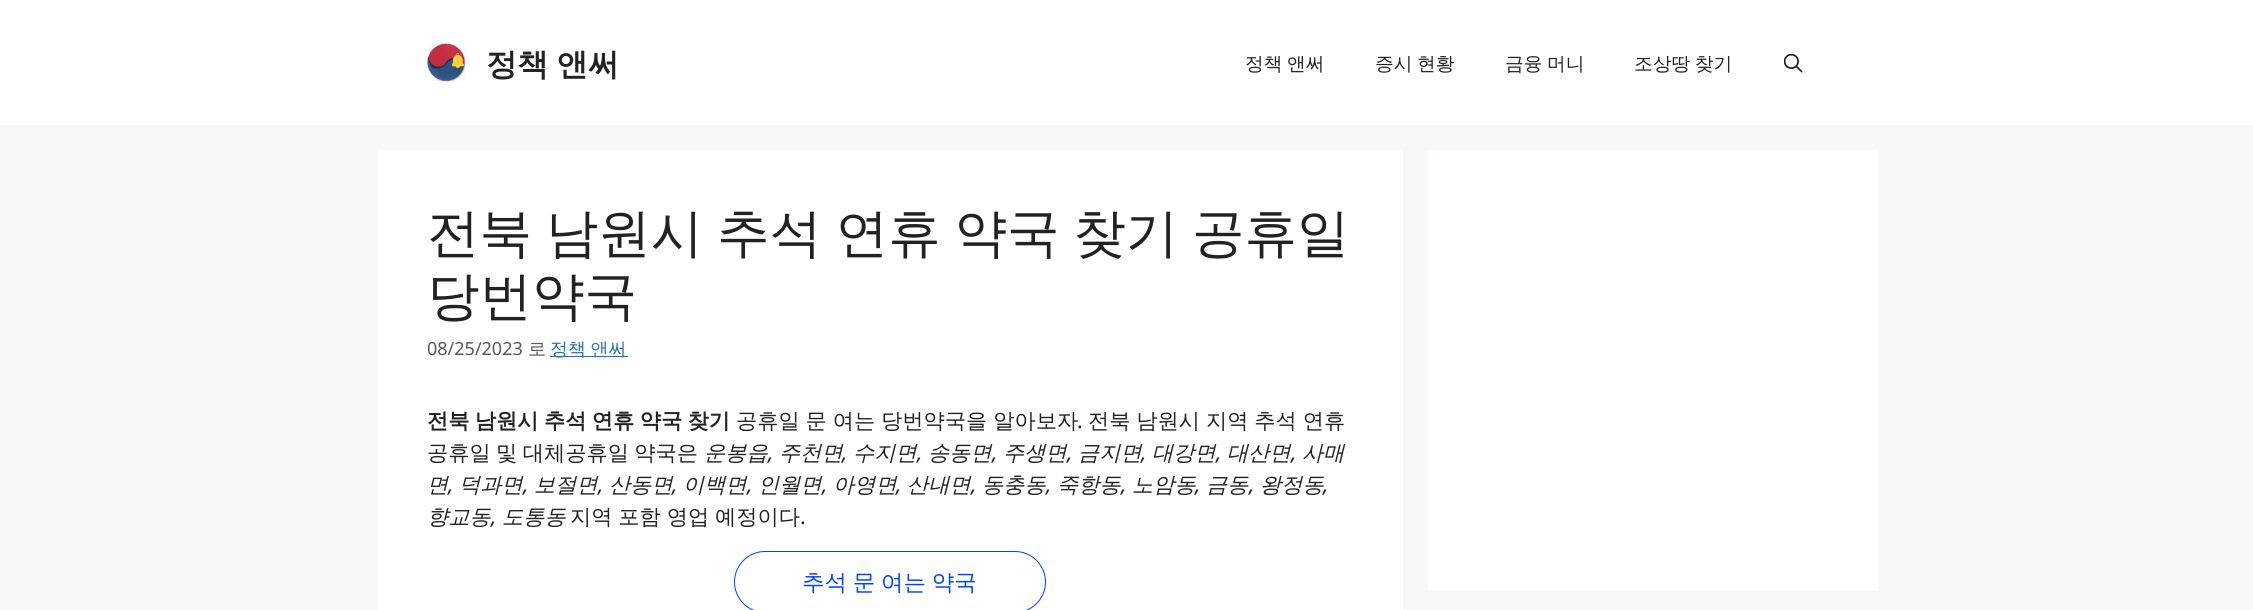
import math
import cairo

surface = cairo.ImageSurface(cairo.Format.RGB24, 2253, 610)
ctx = cairo.Context(surface)
options = cairo.FontOptions()
options.set_hint_metrics(cairo.HintMetrics.OFF)
options.set_hint_style(cairo.HintStyle.NONE)
ctx.set_font_options(options)
ctx.set_miter_limit(4)


def ink(r, g, b):
    ctx.set_source_rgb(r / 255, g / 255, b / 255)


def write(x, y, s, family, size, color, bold=False, italic=False):
    ctx.select_font_face(family, cairo.FontSlant.ITALIC if italic else cairo.FontSlant.NORMAL, cairo.FontWeight.BOLD if bold else cairo.FontWeight.NORMAL)
    ctx.set_font_size(size)
    ink(*color)
    ctx.move_to(x, y)
    ctx.show_text(s)


def write_spaced(x, y, s, letter, word):
    ctx.move_to(x, y)
    for ch in s:
        ctx.show_text(ch)
        ctx.rel_move_to(letter + word * (ch == ' '), 0)


def block(x, y, w, h, *color):
    ink(*color)
    ctx.rectangle(x, y, w, h)
    ctx.fill()


def round_path(x, y, w, h, r):
    ctx.new_sub_path()
    for i, (u, v) in enumerate([(x + w - r, y + h - r), (x + r, y + h - r), (x + r, y + r), (x + w - r, y + r)]):
        ctx.arc(u, v, r, i * math.pi / 2, (i + 1) * math.pi / 2)
    ctx.close_path()


def paste(path, x, y, w, h):
    ctx.save()
    ctx.set_source_surface(cairo.ImageSurface.create_from_png(path), x, y)
    ctx.rectangle(x, y, w, h)
    ctx.fill()
    ctx.restore()


s1 = dict(family="WenQuanYi Zen Hei Medium", size=52.5, color=(34, 34, 34))
s2 = dict(family="Noto Sans", size=18, color=(87, 87, 96))
s3 = dict(family="WenQuanYi Zen Hei Medium", size=18, color=(87, 87, 96))
s4 = dict(family="Noto Sans", size=21.25, color=(34, 34, 34))
s5 = dict(family="WenQuanYi Zen Hei Medium", size=21.25, color=(34, 34, 34), italic=True)
s6 = dict(family="Noto Sans", size=21.25, color=(34, 34, 34), italic=True)

ink(247, 248, 249)
ctx.paint()
block(0, 0, 2253, 125, 255, 255, 255)
paste("pic1.png", 427, 43, 38, 39)
ctx.select_font_face("WenQuanYi Zen Hei", cairo.FontSlant.NORMAL, cairo.FontWeight.BOLD)
ctx.set_font_size(31.25)
ink(34, 34, 34)
write_spaced(486, 75, "정책 앤써", 0, -1)
ctx.select_font_face("WenQuanYi Zen Hei Medium")
ctx.set_font_size(18.75)
write_spaced(1245, 70, "정책 앤써", 0, -1)
write_spaced(1375, 70, "증시 현황", 0, -1)
write_spaced(1505, 70, "금융 머니", 0, -1)
write_spaced(1634, 70, "조상땅 찾기", 0, -1)
paste("pic2.png", 1784, 54, 19, 19)
block(378, 150, 1025, 460, 255, 255, 255)
ctx.set_font_size(52.5)
ink(34, 34, 34)
write_spaced(427, 251, "전북 남원시 추석 연휴 약국 찾기 공휴일", 0, -2)
write(427, 314, "당번약국", **s1)
write(427, 355, "08/25/2023", **s2)
write(528, 355, "로", **s3)
block(550, 356, 78, 1, 30, 115, 190)
write_spaced(550, 355, "정책 앤써", 0, -1)
ctx.select_font_face("WenQuanYi Zen Hei", cairo.FontSlant.NORMAL, cairo.FontWeight.BOLD)
ctx.set_font_size(21.25)
ink(34, 34, 34)
write_spaced(427, 428, "전북 남원시 추석 연휴 약국 찾기", 0, -1)
ctx.select_font_face("WenQuanYi Zen Hei Medium")
write_spaced(736, 428, "공휴일 문 여는 당번약국을 알아보자", 0, -0.5)
write(1077, 428, ".", **s4)
ctx.select_font_face("WenQuanYi Zen Hei Medium")
write_spaced(1088, 428, "전북 남원시 지역 추석 연휴", 0, -0.5)
write_spaced(427, 460, "공휴일 및 대체공휴일 약국은", 0, -1)
write(704, 460, "운봉읍", **s5)
write(768, 460, ",", **s6)
write(779, 460, "주천면", **s5)
write(853, 460, "수지면", **s5)
write(928, 460, "송동면", **s5)
write(1003, 460, "주생면", **s5)
write(1078, 460, "금지면", **s5)
write(1152, 460, "대강면", **s5)
write(1227, 460, "대산면", **s5)
write(1302, 460, "사매", **s5)
write(842, 460, ",", **s6)
write(917, 460, ",", **s6)
write(992, 460, ",", **s6)
write(1067, 460, ",", **s6)
write(1141, 460, ",", **s6)
write(1216, 460, ",", **s6)
write(1291, 460, ",", **s6)
write(427, 492, "면", **s5)
write(448, 492, ",", **s6)
write(459, 492, "덕과면", **s5)
write(534, 492, "보절면", **s5)
write(609, 492, "산동면", **s5)
write(683, 492, "이백면", **s5)
write(758, 492, "인월면", **s5)
write(833, 492, "아영면", **s5)
write(907, 492, "산내면", **s5)
write(982, 492, "동충동", **s5)
write(1057, 492, "죽항동", **s5)
write(1132, 492, "노암동", **s5)
write(1206, 492, "금동", **s5)
write(1260, 492, "왕정동", **s5)
write(523, 492, ",", **s6)
write(598, 492, ",", **s6)
write(672, 492, ",", **s6)
write(747, 492, ",", **s6)
write(822, 492, ",", **s6)
write(896, 492, ",", **s6)
write(971, 492, ",", **s6)
write(1046, 492, ",", **s6)
write(1121, 492, ",", **s6)
write(1195, 492, ",", **s6)
write(1249, 492, ",", **s6)
write(1323, 492, ",", **s6)
write(427, 524, "향교동", **s5)
write(491, 524, ",", **s6)
write(502, 524, "도통동", **s5)
ctx.select_font_face("WenQuanYi Zen Hei Medium")
write_spaced(570, 524, "지역 포함 영업 예정이다", 0, -0.5)
write(800, 524, ".", **s4)
round_path(734.5, 551.5, 311, 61, 30.5)
ink(0, 68, 255)
ctx.set_line_width(1)
ctx.stroke()
ctx.select_font_face("WenQuanYi Zen Hei Medium")
ctx.set_font_size(22.5)
write_spaced(802, 590, "추석 문 여는 약국", 0, -1)
block(1428, 150, 450, 441, 255, 255, 255)
surface.write_to_png("screenshot.png")
